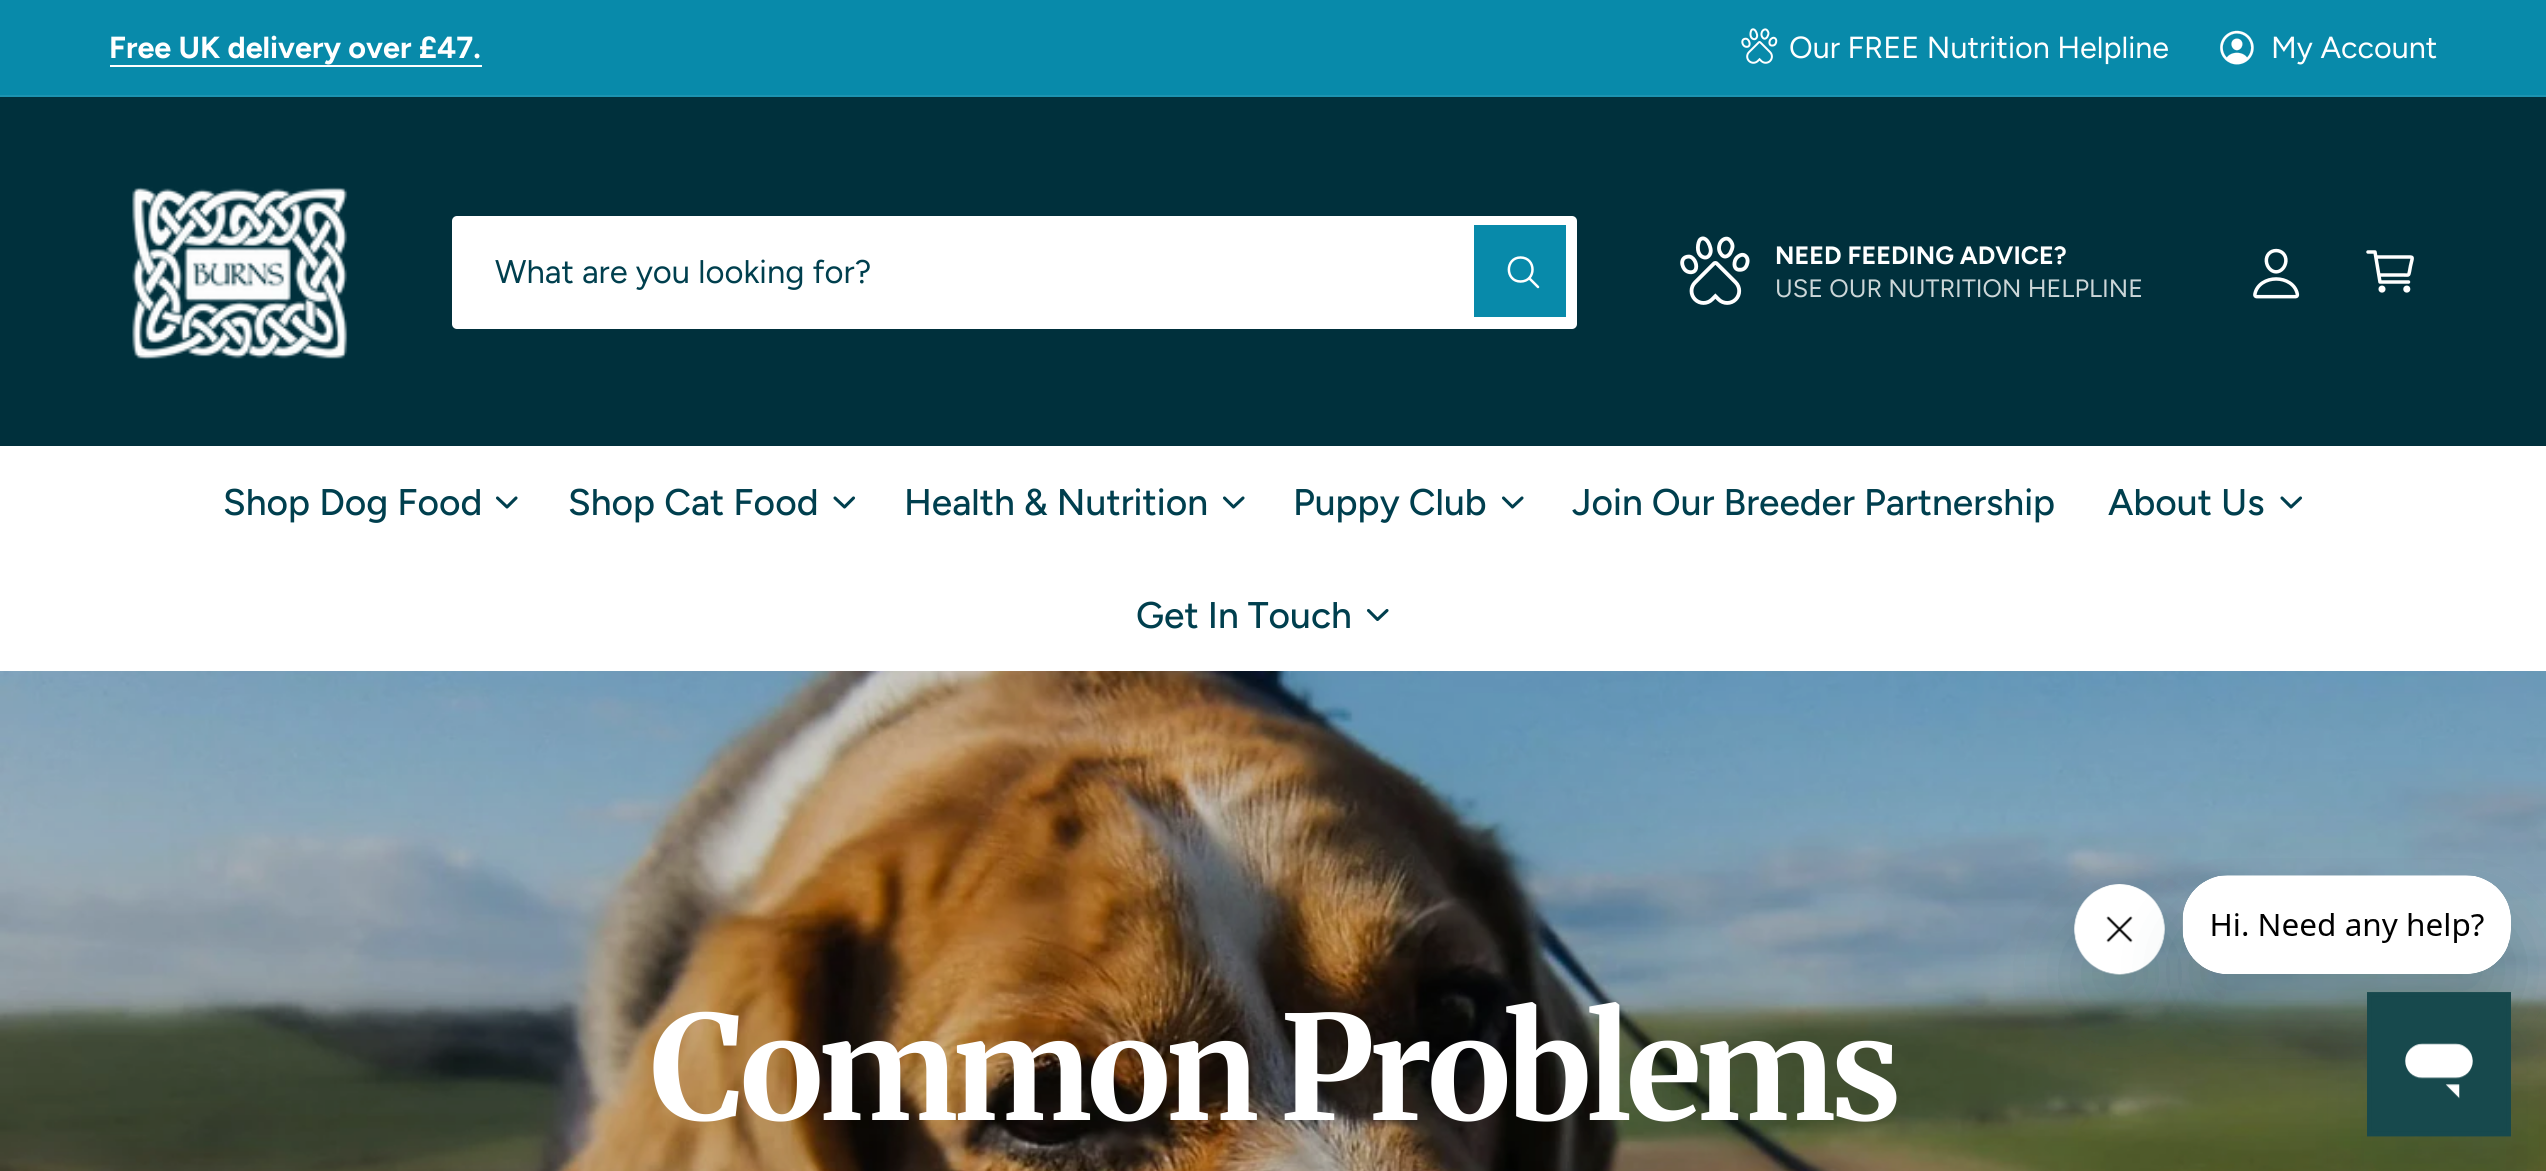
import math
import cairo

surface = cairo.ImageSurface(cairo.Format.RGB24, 2546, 1171)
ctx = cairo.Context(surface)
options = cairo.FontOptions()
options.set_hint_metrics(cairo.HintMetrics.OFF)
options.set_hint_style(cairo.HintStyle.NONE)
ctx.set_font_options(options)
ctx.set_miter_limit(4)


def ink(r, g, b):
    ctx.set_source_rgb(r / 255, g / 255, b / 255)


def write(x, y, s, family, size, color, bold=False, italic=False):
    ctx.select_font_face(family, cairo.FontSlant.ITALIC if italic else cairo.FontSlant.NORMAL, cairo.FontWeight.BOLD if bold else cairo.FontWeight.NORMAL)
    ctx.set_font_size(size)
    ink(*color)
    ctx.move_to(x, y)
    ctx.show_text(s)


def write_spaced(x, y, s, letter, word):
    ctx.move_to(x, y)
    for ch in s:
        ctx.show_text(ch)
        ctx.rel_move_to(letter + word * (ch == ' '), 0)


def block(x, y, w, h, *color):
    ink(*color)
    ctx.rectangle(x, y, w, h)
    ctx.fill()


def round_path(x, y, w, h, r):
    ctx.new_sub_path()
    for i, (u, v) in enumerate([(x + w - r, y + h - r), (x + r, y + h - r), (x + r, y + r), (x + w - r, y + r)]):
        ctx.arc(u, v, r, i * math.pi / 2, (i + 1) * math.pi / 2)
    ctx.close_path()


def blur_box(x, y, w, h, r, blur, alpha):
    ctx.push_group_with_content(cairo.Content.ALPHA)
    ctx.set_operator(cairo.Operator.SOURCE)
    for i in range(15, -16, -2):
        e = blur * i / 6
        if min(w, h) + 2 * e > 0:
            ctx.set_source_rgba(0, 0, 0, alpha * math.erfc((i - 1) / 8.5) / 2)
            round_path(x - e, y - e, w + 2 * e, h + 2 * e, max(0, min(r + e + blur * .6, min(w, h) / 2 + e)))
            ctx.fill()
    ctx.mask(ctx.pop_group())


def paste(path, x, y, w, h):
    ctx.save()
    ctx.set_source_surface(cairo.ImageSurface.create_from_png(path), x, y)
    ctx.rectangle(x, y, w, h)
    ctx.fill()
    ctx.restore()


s1 = dict(family="Figtree", size=30.5, color=(255, 255, 255), bold=True)
s2 = dict(family="Figtree", size=30.5, color=(255, 255, 255))
s3 = dict(family="Figtree", size=32.75, color=(0, 63, 78))
s4 = dict(family="Figtree", size=25.1, color=(255, 255, 255), bold=True)
s5 = dict(family="Figtree", size=25.1, color=(204, 214, 216))
s6 = dict(family="Figtree Medium", size=37.1, color=(0, 63, 78))

ink(8, 138, 170)
ctx.paint()
block(0, 95, 2546, 2, 28, 147, 177)
write(109, 58, "Free UK delivery over £47.", **s1)
block(110, 65, 372, 2, 255, 255, 255)
paste("pic1.png", 1741, 28, 37, 36)
write(1789, 58, "Our FREE Nutrition Helpline", **s2)
paste("pic2.png", 2220, 30, 34, 35)
write(2271, 58, "My Account", **s2)
block(0, 97, 2546, 349, 0, 48, 60)
paste("pic3.png", 132, 187, 216, 173)
ink(255, 255, 255)
round_path(452, 216, 1125, 113, 5)
ctx.fill()
write(495, 283, "What are you looking for?", **s3)
block(1474, 225, 92, 92, 8, 138, 170)
ctx.new_path()
ctx.move_to(1520.5, 257.5)
ctx.curve_to(1505, 257.5, 1505, 281.5, 1520.5, 281.5)
ctx.curve_to(1536.5, 281.5, 1536.5, 257.5, 1520.5, 257.5)
ctx.close_path()
ink(255, 255, 255)
ctx.set_line_width(2.5)
ctx.stroke()
ctx.new_path()
ctx.move_to(1529.5, 278.5)
ctx.line_to(1538, 287)
ctx.set_line_cap(cairo.LineCap.ROUND)
ctx.stroke()
paste("pic4.png", 1680, 236, 70, 69)
write(1775, 264, "NEED FEEDING ADVICE?", **s4)
write(1775, 297, "USE OUR NUTRITION HELPLINE", **s5)
paste("pic5.png", 2253, 248, 47, 51)
ctx.arc(2382, 289.1, 1.8, 0, 2 * math.pi)
ink(255, 255, 255)
ctx.set_line_width(3.5)
ctx.set_line_cap(cairo.LineCap.BUTT)
ctx.stroke()
ctx.arc(2406.8, 289.1, 1.8, 0, 2 * math.pi)
ctx.stroke()
ctx.new_path()
ctx.move_to(2368, 252)
ctx.line_to(2375, 252)
ctx.line_to(2380, 282)
ctx.line_to(2408.5, 282)
ctx.move_to(2380, 275)
ctx.line_to(2403.5, 275)
ctx.curve_to(2409, 275, 2408.5, 276, 2409.5, 271.5)
ctx.line_to(2410.5, 266)
ctx.curve_to(2412.5, 256, 2414.5, 257, 2405.5, 257)
ctx.line_to(2376.5, 257)
ctx.set_line_cap(cairo.LineCap.ROUND)
ctx.set_line_join(cairo.LineJoin.ROUND)
ctx.stroke()
block(0, 446, 2546, 225, 255, 255, 255)
write(223, 515, "Shop Dog Food", **s6)
ctx.new_path()
ctx.move_to(497.5, 498)
ctx.line_to(507, 507)
ctx.line_to(516, 498)
ctx.set_line_width(3.1)
ctx.stroke()
write(568, 515, "Shop Cat Food", **s6)
ctx.new_path()
ctx.move_to(835, 498)
ctx.line_to(844.5, 507)
ctx.line_to(853.5, 498)
ctx.stroke()
write(904, 515, "Health & Nutrition", **s6)
ctx.new_path()
ctx.move_to(1224.5, 498)
ctx.line_to(1233.5, 507)
ctx.line_to(1243, 498)
ctx.stroke()
write(1293, 515, "Puppy Club", **s6)
ctx.new_path()
ctx.move_to(1503.5, 498)
ctx.line_to(1512.5, 507)
ctx.line_to(1522, 498)
ctx.stroke()
write(1572, 515, "Join Our Breeder Partnership", **s6)
write(2108, 515, "About Us", **s6)
ctx.new_path()
ctx.move_to(2282, 498)
ctx.line_to(2291, 507)
ctx.line_to(2300.5, 498)
ctx.stroke()
write(1136, 628, "Get In Touch", **s6)
ctx.new_path()
ctx.move_to(1368.5, 610.5)
ctx.line_to(1377.5, 619.5)
ctx.line_to(1387, 610.5)
ctx.stroke()
paste("pic9.png", 0, 671, 2546, 500)
ink(23, 73, 77)
blur_box(2075, 929, 90, 90, 45, 34, 0.15)
paste("pic7.png", 2074, 884, 91, 91)
blur_box(2183, 920, 328, 99, 45, 34, 0.15)
paste("pic6.png", 2182, 875, 329, 99)
paste("pic8.png", 2367, 992, 144, 145)
ctx.select_font_face("Merriweather", cairo.FontSlant.NORMAL, cairo.FontWeight.BOLD)
ctx.set_font_size(144)
ink(255, 255, 255)
write_spaced(651, 1120, "Common Problems", -4.25, 0)
ink(23, 73, 77)
blur_box(2075, 929, 90, 90, 45, 34, 0.15)
paste("pic11.png", 2074, 884, 91, 91)
blur_box(2183, 920, 328, 99, 45, 34, 0.15)
paste("pic10.png", 2182, 875, 329, 99)
blur_box(2367, 1037, 144, 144, 0, 34, 0.15)
paste("pic12.png", 2367, 992, 144, 145)
surface.write_to_png("screenshot.png")
